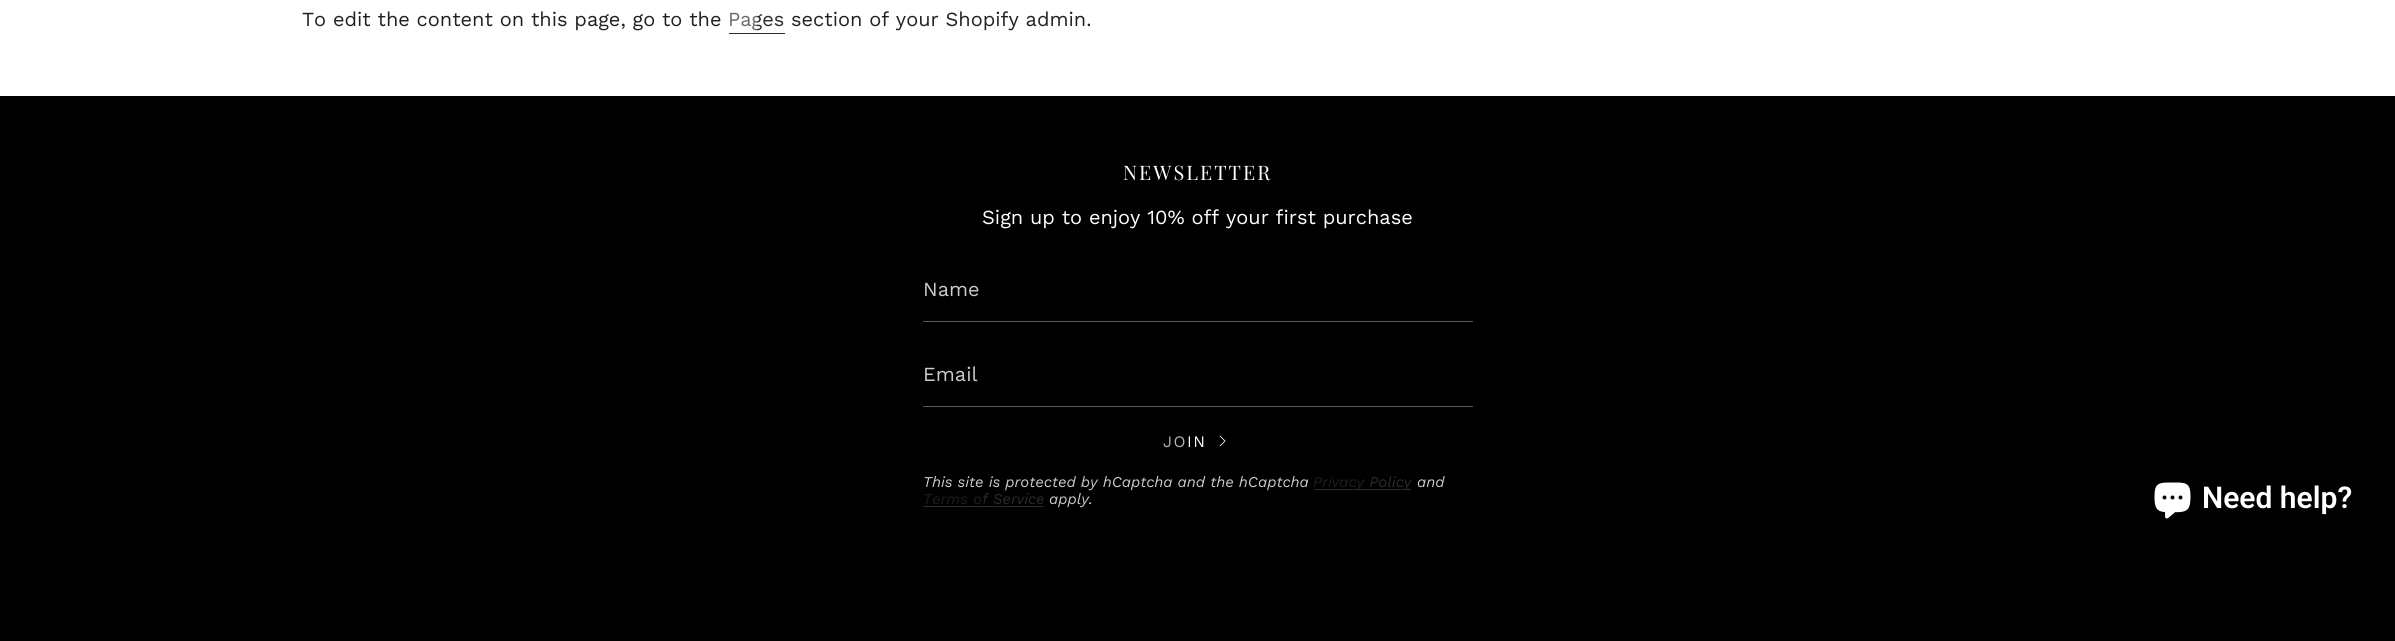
import math
import cairo

surface = cairo.ImageSurface(cairo.Format.RGB24, 2395, 641)
ctx = cairo.Context(surface)
options = cairo.FontOptions()
options.set_hint_metrics(cairo.HintMetrics.OFF)
options.set_hint_style(cairo.HintStyle.NONE)
ctx.set_font_options(options)
ctx.set_miter_limit(4)


def ink(r, g, b):
    ctx.set_source_rgb(r / 255, g / 255, b / 255)


def write(x, y, s, family, size, color, bold=False, italic=False):
    ctx.select_font_face(family, cairo.FontSlant.ITALIC if italic else cairo.FontSlant.NORMAL, cairo.FontWeight.BOLD if bold else cairo.FontWeight.NORMAL)
    ctx.set_font_size(size)
    ink(*color)
    ctx.move_to(x, y)
    ctx.show_text(s)


def write_spaced(x, y, s, letter, word):
    ctx.move_to(x, y)
    for ch in s:
        ctx.show_text(ch)
        ctx.rel_move_to(letter + word * (ch == ' '), 0)


def block(x, y, w, h, *color):
    ink(*color)
    ctx.rectangle(x, y, w, h)
    ctx.fill()


def paste(path, x, y, w, h):
    ctx.save()
    ctx.set_source_surface(cairo.ImageSurface.create_from_png(path), x, y)
    ctx.rectangle(x, y, w, h)
    ctx.fill()
    ctx.restore()


s1 = dict(family="Work Sans", size=20, color=(33, 33, 33))
s2 = dict(family="Work Sans", size=20, color=(255, 255, 255))
s3 = dict(family="Work Sans", size=20, color=(204, 204, 204))
s4 = dict(family="Work Sans", size=15, color=(204, 204, 204), italic=True)
s5 = dict(family="Roboto SemiBold", size=30, color=(255, 255, 255))

ink(255, 255, 255)
ctx.paint()
write(302, 26, "To edit the content on this page, go to the", **s1)
gradient = cairo.LinearGradient(728, 21, 785, 21)
gradient.add_color_stop_rgba(0, 0.412, 0.42, 0.427, 1)
gradient.add_color_stop_rgba(0.5, 0.412, 0.42, 0.427, 1)
gradient.add_color_stop_rgba(0.5, 0.157, 0.173, 0.18, 1)
gradient.add_color_stop_rgba(1, 0.157, 0.173, 0.18, 1)
ctx.set_source(gradient)
ctx.move_to(728, 26)
ctx.show_text("Pages")
block(729, 33, 56, 1, 40, 44, 46)
write(791, 26, "section of your Shopify admin.", **s1)
block(0, 96, 2395, 545, 0, 0, 0)
ctx.select_font_face("Playfair Display")
ink(255, 255, 255)
write_spaced(1123, 180, "NEWSLETTER", 2, 0)
write(982, 224, "Sign up to enjoy 10% off your first purchase", **s2)
block(923, 321, 550, 1, 89, 89, 89)
write(923, 296, "Name", **s3)
block(923, 406, 550, 1, 89, 89, 89)
write(923, 381, "Email", **s3)
ctx.set_font_size(16)
gradient = cairo.LinearGradient(1163, 442, 1207, 442)
gradient.add_color_stop_rgba(0, 0.702, 0.702, 0.702, 1)
gradient.add_color_stop_rgba(0.5, 0.702, 0.702, 0.702, 1)
gradient.add_color_stop_rgba(0.5, 1, 1, 1, 1)
gradient.add_color_stop_rgba(1, 1, 1, 1, 1)
ctx.set_source(gradient)
write_spaced(1163, 447, "JOIN", 1.5, 0)
ctx.new_path()
ctx.move_to(1220, 436)
ctx.line_to(1225, 441)
ctx.line_to(1220, 446)
ink(255, 255, 255)
ctx.set_line_width(0.8)
ctx.set_line_cap(cairo.LineCap.ROUND)
ctx.set_line_join(cairo.LineJoin.ROUND)
ctx.stroke()
write(923, 487, "This site is protected by hCaptcha and the hCaptcha", **s4)
gradient = cairo.LinearGradient(1313, 482, 1412, 482)
gradient.add_color_stop_rgba(0, 0.11, 0.122, 0.125, 1)
gradient.add_color_stop_rgba(0.5, 0.11, 0.122, 0.125, 1)
gradient.add_color_stop_rgba(0.5, 0.157, 0.173, 0.18, 1)
gradient.add_color_stop_rgba(1, 0.157, 0.173, 0.18, 1)
ctx.set_source(gradient)
ctx.move_to(1313, 487)
ctx.show_text("Privacy Policy")
block(1314, 489, 97, 1, 40, 44, 46)
write(1417, 487, "and", **s4)
gradient = cairo.LinearGradient(923, 499, 1044, 499)
gradient.add_color_stop_rgba(0, 0.11, 0.122, 0.125, 1)
gradient.add_color_stop_rgba(0.5, 0.11, 0.122, 0.125, 1)
gradient.add_color_stop_rgba(0.5, 0.157, 0.173, 0.18, 1)
gradient.add_color_stop_rgba(1, 0.157, 0.173, 0.18, 1)
ctx.set_source(gradient)
ctx.move_to(923, 504)
ctx.show_text("Terms of Service")
block(923, 506, 121, 1, 40, 44, 46)
write(1049, 504, "apply.", **s4)
paste("pic1.png", 2154, 482, 37, 37)
write(2202, 508, "Need help?", **s5)
surface.write_to_png("screenshot.png")
